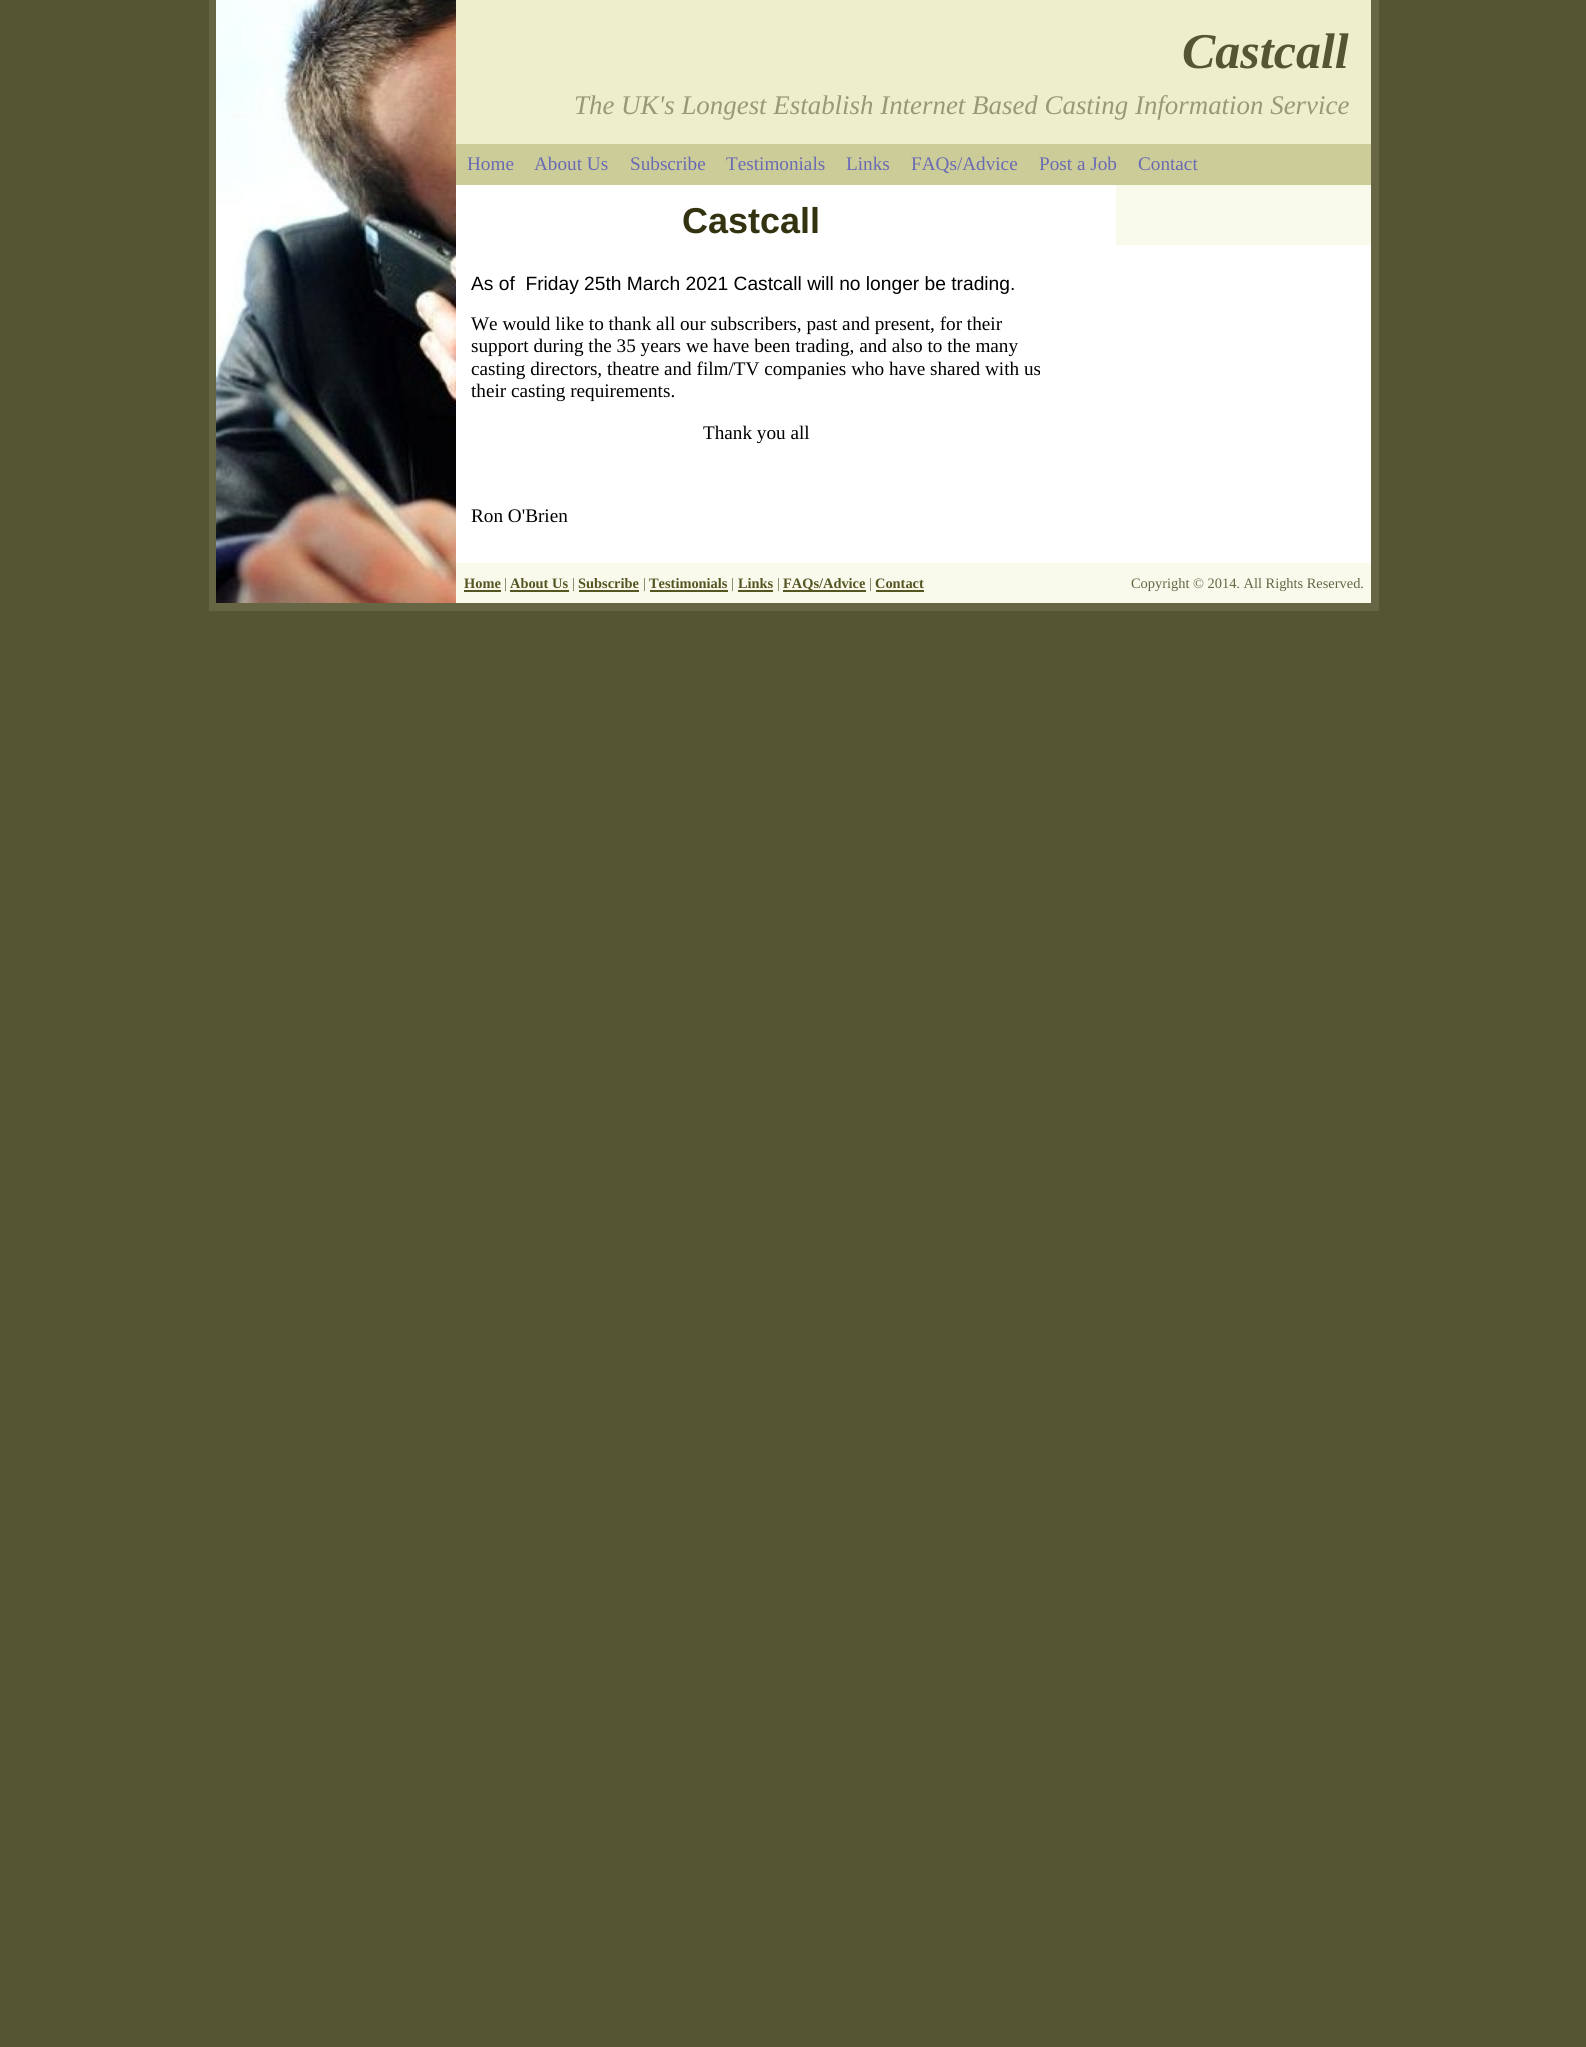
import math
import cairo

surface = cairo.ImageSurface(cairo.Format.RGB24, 1586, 2047)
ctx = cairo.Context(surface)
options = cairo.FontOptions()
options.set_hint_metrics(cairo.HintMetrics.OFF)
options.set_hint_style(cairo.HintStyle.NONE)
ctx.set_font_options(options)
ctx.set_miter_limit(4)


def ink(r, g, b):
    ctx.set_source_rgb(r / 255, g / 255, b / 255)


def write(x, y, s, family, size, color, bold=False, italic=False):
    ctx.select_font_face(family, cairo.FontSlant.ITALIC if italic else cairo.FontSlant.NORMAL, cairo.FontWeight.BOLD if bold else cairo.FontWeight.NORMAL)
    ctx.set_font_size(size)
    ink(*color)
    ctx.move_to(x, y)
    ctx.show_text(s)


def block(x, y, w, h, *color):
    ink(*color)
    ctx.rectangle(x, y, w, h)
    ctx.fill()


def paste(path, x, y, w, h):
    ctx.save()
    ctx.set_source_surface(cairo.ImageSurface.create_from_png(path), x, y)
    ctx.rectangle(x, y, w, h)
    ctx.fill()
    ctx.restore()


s1 = dict(family="Liberation Serif", size=50, color=(85, 85, 51), bold=True, italic=True)
s2 = dict(family="Liberation Serif", size=26.9, color=(153, 153, 119), italic=True)
s3 = dict(family="Liberation Serif", size=19.2, color=(106, 106, 180))
s4 = dict(family="Liberation Sans", size=36, color=(51, 51, 17), bold=True)
s5 = dict(family="Liberation Sans", size=19.2, color=(0, 0, 0))
s6 = dict(family="Liberation Serif", size=19.2, color=(0, 0, 0))
s7 = dict(family="Liberation Serif", size=14.4, color=(85, 85, 34), bold=True)
s8 = dict(family="Liberation Serif", size=14.4, color=(102, 102, 68))

ink(85, 85, 51)
ctx.paint()
paste("pic1.png", 216, 0, 240, 603)
block(1371, 0, 8, 611, 102, 102, 68)
block(209, 603, 1170, 8, 102, 102, 68)
block(209, 0, 7, 611, 102, 102, 68)
block(456, 0, 915, 144, 238, 238, 204)
write(1182, 68, "Castcall", **s1)
write(574, 114, "The UK's Longest Establish Internet Based Casting Information Service", **s2)
block(456, 144, 915, 41, 204, 204, 153)
write(467, 170, "Home", **s3)
write(534, 170, "About Us", **s3)
write(630, 170, "Subscribe", **s3)
write(726, 170, "Testimonials", **s3)
write(846, 170, "Links", **s3)
write(911, 170, "FAQs/Advice", **s3)
write(1039, 170, "Post a Job", **s3)
write(1138, 170, "Contact", **s3)
block(456, 185, 915, 378, 255, 255, 255)
write(682, 233, "Castcall", **s4)
write(471, 290, "As of  Friday 25th March 2021 Castcall will no longer be trading.", **s5)
write(471, 330, "We would like to thank all our subscribers, past and present, for their", **s6)
write(471, 352, "support during the 35 years we have been trading, and also to the many", **s6)
write(471, 375, "casting directors, theatre and film/TV companies who have shared with us", **s6)
write(471, 397, "their casting requirements.", **s6)
write(703, 439, "Thank you all", **s6)
write(471, 522, "Ron O'Brien", **s6)
block(1116, 185, 255, 60, 249, 249, 236)
block(456, 563, 915, 40, 249, 249, 236)
write(464, 588, "Home", **s7)
block(464, 590, 37, 2, 85, 85, 34)
write(504, 588, "|", **s8)
write(510, 588, "About Us", **s7)
block(510, 590, 59, 2, 85, 85, 34)
write(572, 588, "|", **s8)
write(578, 588, "Subscribe", **s7)
block(579, 590, 60, 2, 85, 85, 34)
write(643, 588, "|", **s8)
write(649, 588, "Testimonials", **s7)
block(650, 590, 78, 2, 85, 85, 34)
write(731, 588, "|", **s8)
write(738, 588, "Links", **s7)
block(738, 590, 35, 2, 85, 85, 34)
write(777, 588, "|", **s8)
block(783, 590, 83, 2, 85, 85, 34)
write(783, 588, "FAQs/Advice", **s7)
write(869, 588, "|", **s8)
write(875, 588, "Contact", **s7)
block(876, 590, 48, 2, 85, 85, 34)
write(1131, 588, "Copyright © 2014. All Rights Reserved.", **s8)
surface.write_to_png("screenshot.png")
